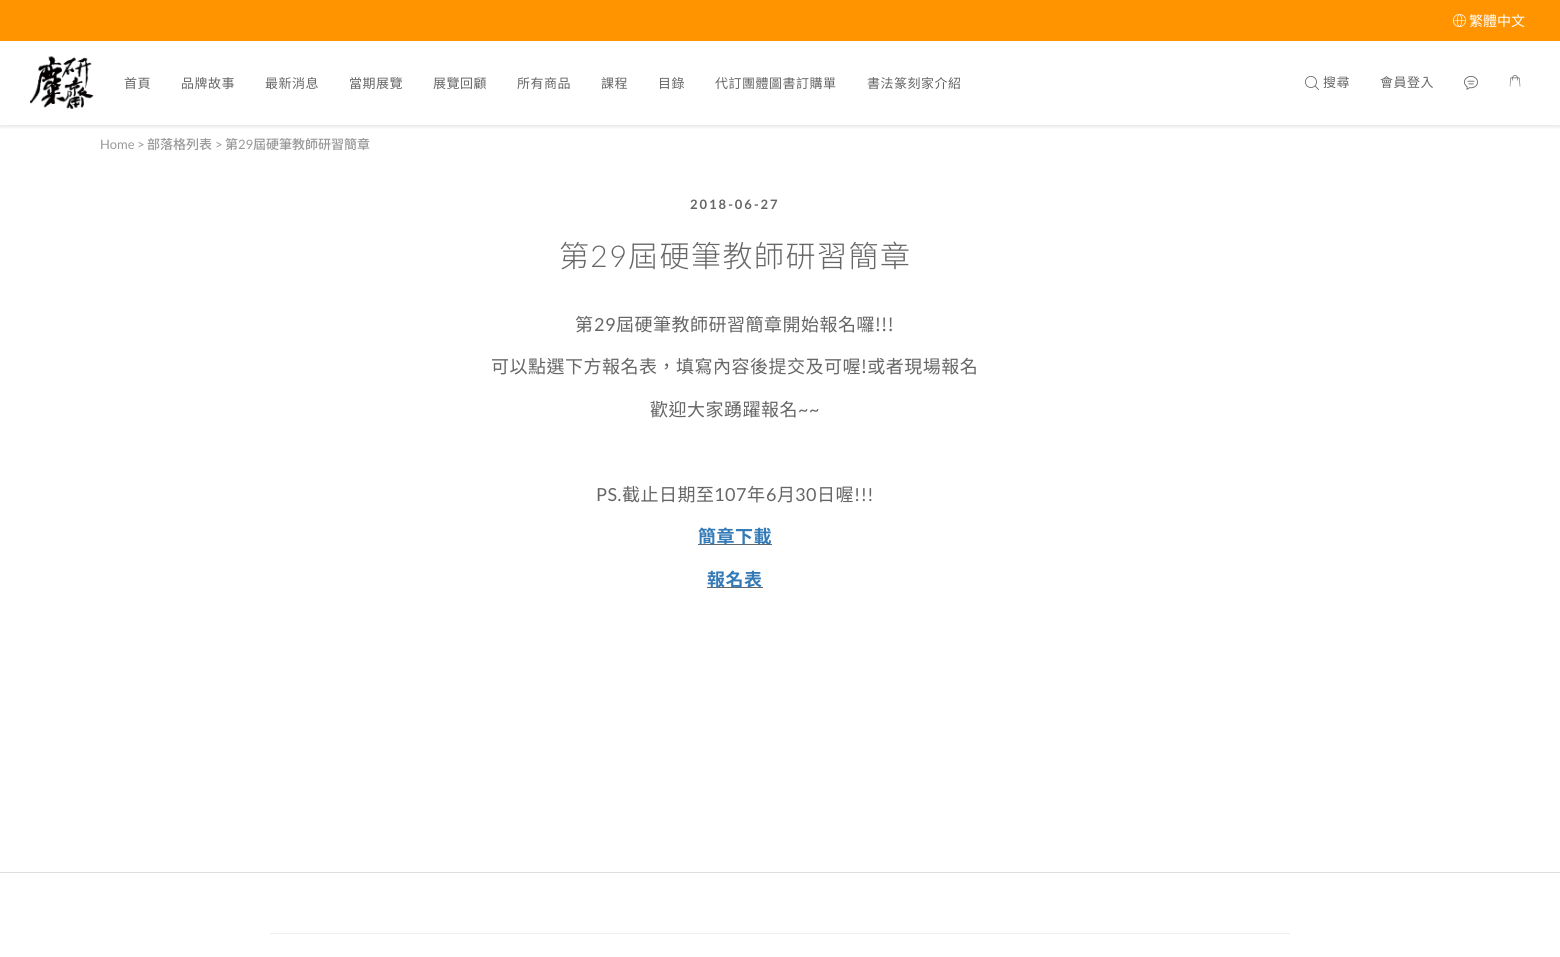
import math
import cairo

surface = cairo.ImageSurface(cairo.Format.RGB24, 1560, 957)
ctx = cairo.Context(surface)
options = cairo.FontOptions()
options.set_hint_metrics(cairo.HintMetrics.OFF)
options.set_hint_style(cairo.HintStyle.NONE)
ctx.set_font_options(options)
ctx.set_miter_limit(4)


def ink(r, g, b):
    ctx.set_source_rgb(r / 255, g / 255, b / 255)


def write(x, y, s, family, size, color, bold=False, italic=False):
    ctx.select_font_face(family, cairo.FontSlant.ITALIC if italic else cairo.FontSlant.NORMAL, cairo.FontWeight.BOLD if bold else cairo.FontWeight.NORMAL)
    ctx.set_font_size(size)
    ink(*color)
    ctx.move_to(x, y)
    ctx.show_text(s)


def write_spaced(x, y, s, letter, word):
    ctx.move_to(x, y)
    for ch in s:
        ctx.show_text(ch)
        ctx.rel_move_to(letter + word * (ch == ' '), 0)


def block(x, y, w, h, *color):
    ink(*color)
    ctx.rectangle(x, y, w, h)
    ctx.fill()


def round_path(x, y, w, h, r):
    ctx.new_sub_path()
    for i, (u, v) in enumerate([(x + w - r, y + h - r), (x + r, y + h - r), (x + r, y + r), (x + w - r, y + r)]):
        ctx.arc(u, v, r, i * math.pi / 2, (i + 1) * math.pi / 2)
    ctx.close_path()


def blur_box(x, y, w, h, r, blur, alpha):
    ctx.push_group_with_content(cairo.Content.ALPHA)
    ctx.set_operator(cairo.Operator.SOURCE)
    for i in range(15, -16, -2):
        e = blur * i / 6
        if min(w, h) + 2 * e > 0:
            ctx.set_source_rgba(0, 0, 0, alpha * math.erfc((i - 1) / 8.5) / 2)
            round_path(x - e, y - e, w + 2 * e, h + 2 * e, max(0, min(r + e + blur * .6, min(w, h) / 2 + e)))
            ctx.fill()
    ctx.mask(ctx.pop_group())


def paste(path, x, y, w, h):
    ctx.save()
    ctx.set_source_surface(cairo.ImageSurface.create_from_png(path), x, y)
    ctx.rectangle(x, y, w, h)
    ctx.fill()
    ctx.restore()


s1 = dict(family="Noto Sans TC", size=14, color=(255, 255, 255))
s2 = dict(family="Lato", size=13, color=(153, 153, 153))
s3 = dict(family="Noto Sans TC Medium", size=13, color=(153, 153, 153))

ink(255, 255, 255)
ctx.paint()
block(0, 0, 1560, 41, 255, 147, 0)
paste("pic1.png", 1453, 14, 13, 13)
write(1469, 26, "繁體中文", **s1)
ctx.save()
ctx.rectangle(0, 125, 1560, 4)
ctx.clip()
ink(0, 0, 0)
blur_box(0, 43, 1560, 84, 0, 2, 0.1)
ctx.restore()
paste("pic2.png", 30, 56, 64, 54)
ctx.set_font_size(13)
ink(102, 102, 102)
write_spaced(124, 88, "首頁", 0.5, 0)
write_spaced(181, 88, "品牌故事", 0.5, 0)
write_spaced(265, 88, "最新消息", 0.5, 0)
write_spaced(349, 88, "當期展覽", 0.5, 0)
write_spaced(433, 88, "展覽回顧", 0.5, 0)
write_spaced(517, 88, "所有商品", 0.5, 0)
write_spaced(601, 88, "課程", 0.5, 0)
write_spaced(658, 88, "目錄", 0.5, 0)
write_spaced(715, 88, "代訂團體圖書訂購單", 0.5, 0)
write_spaced(867, 88, "書法篆刻家介紹", 0.5, 0)
paste("pic3.png", 1305, 76, 14, 14)
write_spaced(1323, 87, "搜尋", 0.5, 0)
write_spaced(1380, 87, "會員登入", 0.5, 0)
paste("pic4.png", 1464, 76, 14, 14)
paste("pic5.png", 1509, 75, 12, 12)
write(100, 149, "Home >", **s2)
write(147, 149, "部落格列表", **s3)
write(215, 149, ">", **s2)
write(225, 149, "第", **s3)
write(238, 149, "29", **s2)
write(253, 149, "屆硬筆教師研習簡章", **s3)
ctx.select_font_face("Lato", cairo.FontSlant.NORMAL, cairo.FontWeight.BOLD)
ink(102, 102, 102)
write_spaced(690, 209, "2018-06-27", 2, 0)
ctx.select_font_face("Noto Sans TC Light")
ctx.set_font_size(30)
write_spaced(559, 267, "第", 1.5, 0)
ctx.select_font_face("Lato Light")
write_spaced(590, 267, "29", 1.5, 0)
ctx.select_font_face("Noto Sans TC Light")
write_spaced(628, 267, "屆硬筆教師研習簡章", 1.5, 0)
ctx.select_font_face("Noto Sans TC")
ctx.set_font_size(18)
write_spaced(575, 331, "第", 0.5, 0)
ctx.select_font_face("Lato")
write_spaced(594, 331, "29", 0.5, 0)
ctx.select_font_face("Noto Sans TC")
write_spaced(616, 331, "屆硬筆教師研習簡章開始報名囉!!!", 0.5, 0)
write_spaced(491, 373, "可以點選下方報名表，填寫內容後提交及可喔!或者現場報名", 0.5, 0)
write_spaced(650, 416, "歡迎大家踴躍報名", 0.5, 0)
ctx.select_font_face("Lato")
write_spaced(798, 416, "~~", 0.5, 0)
write_spaced(596, 501, "PS.", 0.5, 0)
ctx.select_font_face("Noto Sans TC")
write_spaced(622, 501, "截止日期至", 0.5, 0)
ctx.select_font_face("Lato")
write_spaced(714, 501, "107", 0.5, 0)
ctx.select_font_face("Noto Sans TC")
write_spaced(747, 501, "年", 0.5, 0)
ctx.select_font_face("Lato")
write_spaced(766, 501, "6", 0.5, 0)
ctx.select_font_face("Noto Sans TC")
write_spaced(777, 501, "月", 0.5, 0)
ctx.select_font_face("Lato")
write_spaced(795, 501, "30", 0.5, 0)
ctx.select_font_face("Noto Sans TC")
write_spaced(817, 501, "日喔", 0.5, 0)
ctx.select_font_face("Lato")
write_spaced(854, 501, "!!!", 0.5, 0)
block(698, 544, 74, 1, 102, 102, 102)
ctx.select_font_face("Noto Sans TC", cairo.FontSlant.NORMAL, cairo.FontWeight.BOLD)
ink(51, 122, 183)
write_spaced(698, 543, "簡章下載", 0.5, 0)
block(707, 587, 56, 1, 102, 102, 102)
ink(51, 122, 183)
write_spaced(707, 586, "報名表", 0.5, 0)
block(0, 872, 1560, 1, 221, 221, 221)
block(270, 933, 1020, 1, 238, 238, 238)
surface.write_to_png("screenshot.png")
